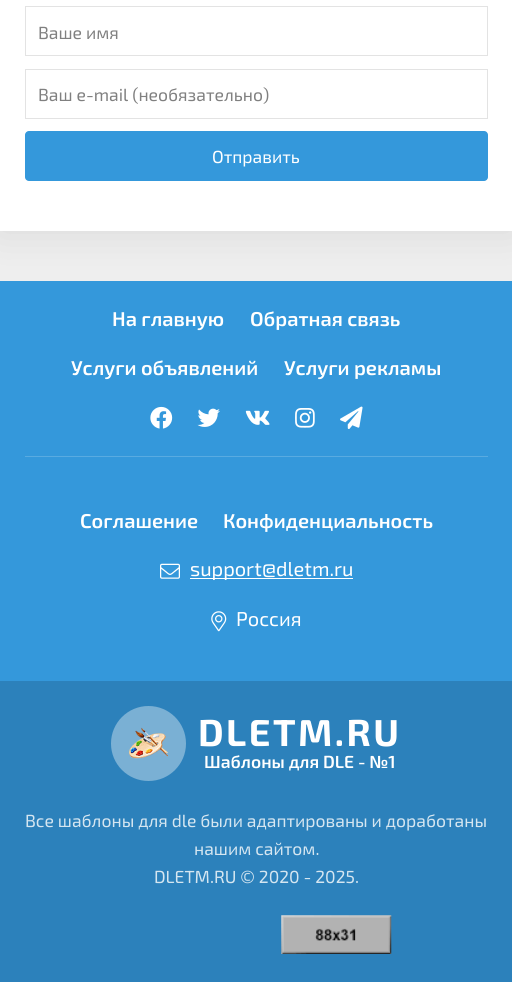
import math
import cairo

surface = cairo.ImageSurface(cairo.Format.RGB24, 512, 982)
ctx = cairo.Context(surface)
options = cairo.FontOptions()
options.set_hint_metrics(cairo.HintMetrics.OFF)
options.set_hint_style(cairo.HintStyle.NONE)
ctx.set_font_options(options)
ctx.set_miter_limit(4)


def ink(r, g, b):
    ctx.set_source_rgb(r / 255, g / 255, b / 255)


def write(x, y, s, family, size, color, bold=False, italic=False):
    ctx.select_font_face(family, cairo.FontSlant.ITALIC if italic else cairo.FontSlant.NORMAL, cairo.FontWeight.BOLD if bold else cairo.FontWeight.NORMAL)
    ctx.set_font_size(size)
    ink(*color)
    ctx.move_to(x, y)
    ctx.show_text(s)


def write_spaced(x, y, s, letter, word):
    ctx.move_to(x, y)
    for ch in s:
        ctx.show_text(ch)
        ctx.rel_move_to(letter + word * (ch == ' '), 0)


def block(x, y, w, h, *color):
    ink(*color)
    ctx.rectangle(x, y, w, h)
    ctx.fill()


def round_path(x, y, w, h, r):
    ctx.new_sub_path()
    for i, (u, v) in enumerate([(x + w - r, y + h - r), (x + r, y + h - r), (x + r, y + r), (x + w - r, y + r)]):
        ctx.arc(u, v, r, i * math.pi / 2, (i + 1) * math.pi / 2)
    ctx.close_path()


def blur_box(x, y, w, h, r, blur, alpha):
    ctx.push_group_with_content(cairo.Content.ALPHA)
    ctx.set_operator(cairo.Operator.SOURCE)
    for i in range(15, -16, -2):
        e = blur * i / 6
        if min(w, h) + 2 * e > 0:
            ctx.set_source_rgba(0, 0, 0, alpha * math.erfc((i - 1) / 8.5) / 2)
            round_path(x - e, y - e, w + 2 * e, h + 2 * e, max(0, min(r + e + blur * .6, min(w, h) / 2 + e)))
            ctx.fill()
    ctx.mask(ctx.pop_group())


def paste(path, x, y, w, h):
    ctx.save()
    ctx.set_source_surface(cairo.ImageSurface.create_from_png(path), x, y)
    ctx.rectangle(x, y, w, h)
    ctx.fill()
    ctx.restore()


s1 = dict(family="Exo 2", size=17.5, color=(128, 128, 128))
s2 = dict(family="Exo 2", size=17.5, color=(255, 255, 255))
s3 = dict(family="Exo 2 SemiBold", size=20, color=(255, 255, 255))
s4 = dict(family="Exo 2", size=20, color=(255, 255, 255))
s5 = dict(family="Exo 2 SemiBold", size=17.5, color=(255, 255, 255))
s6 = dict(family="Exo 2", size=17.5, color=(213, 230, 241))

ink(238, 238, 238)
ctx.paint()
block(0, 281, 512, 400, 52, 152, 219)
ink(0, 0, 0)
blur_box(0, -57, 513, 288, 0, 19, 0.1)
block(0, 0, 512, 231, 255, 255, 255)
ctx.rectangle(25.5, 6.5, 462, 49)
ink(227, 227, 227)
ctx.set_line_width(1)
ctx.stroke()
write(38, 39, "Ваше имя", **s1)
ctx.rectangle(25.5, 69.5, 462, 49)
ink(227, 227, 227)
ctx.stroke()
write(38, 101, "Ваш e-mail (необязательно)", **s1)
ink(52, 152, 219)
round_path(25, 131, 463, 50, 4)
ctx.fill()
write(212, 163, "Отправить", **s2)
write(112, 326, "На главную", **s3)
write(250, 326, "Обратная связь", **s3)
write(71, 375, "Услуги объявлений", **s3)
write(284, 375, "Услуги рекламы", **s3)
paste("pic1.png", 150, 406, 23, 23)
paste("pic2.png", 197, 408, 23, 19)
paste("pic3.png", 245, 410, 25, 15)
paste("pic4.png", 295, 408, 20, 20)
paste("pic5.png", 340, 406, 23, 23)
block(25, 456, 463, 1, 89, 171, 225)
write(80, 528, "Соглашение", **s3)
write(223, 528, "Конфиденциальность", **s3)
paste("pic6.png", 160, 563, 20, 16)
block(190, 578, 163, 1, 255, 255, 255)
write(190, 576, "support@dletm.ru", **s4)
paste("pic7.png", 211, 611, 16, 21)
write(236, 626, "Россия", **s4)
block(0, 681, 512, 301, 44, 129, 187)
ink(122, 176, 212)
ctx.new_path()
ctx.arc(148.5, 743.5, 37.5, 0, 2 * math.pi)
ctx.fill()
paste("pic8.png", 129, 727, 39, 32)
ctx.select_font_face("Exo 2", cairo.FontSlant.NORMAL, cairo.FontWeight.BOLD)
ctx.set_font_size(37.5)
ink(255, 255, 255)
write_spaced(198, 746, "DLETM.RU", 2.5, 0)
write(204, 768, "Шаблоны для DLE - №1", **s5)
write(25, 827, "Все шаблоны для dle были адаптированы и доработаны", **s6)
write(194, 855, "нашим сайтом.", **s6)
write(154, 883, "DLETM.RU © 2020 - 2025.", **s6)
paste("pic9.png", 281, 915, 111, 39)
surface.write_to_png("screenshot.png")
